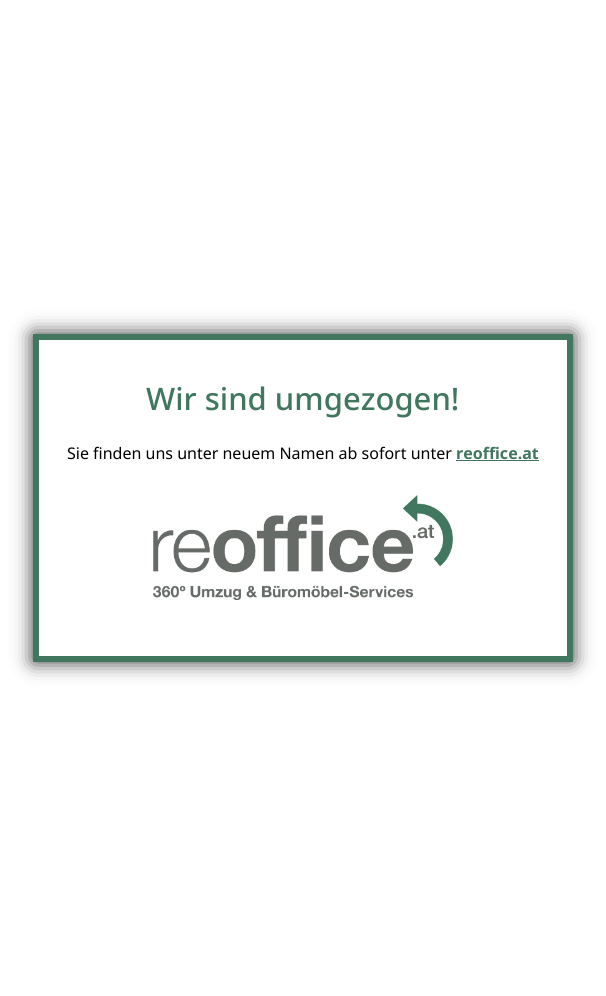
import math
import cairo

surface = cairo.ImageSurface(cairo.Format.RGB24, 606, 996)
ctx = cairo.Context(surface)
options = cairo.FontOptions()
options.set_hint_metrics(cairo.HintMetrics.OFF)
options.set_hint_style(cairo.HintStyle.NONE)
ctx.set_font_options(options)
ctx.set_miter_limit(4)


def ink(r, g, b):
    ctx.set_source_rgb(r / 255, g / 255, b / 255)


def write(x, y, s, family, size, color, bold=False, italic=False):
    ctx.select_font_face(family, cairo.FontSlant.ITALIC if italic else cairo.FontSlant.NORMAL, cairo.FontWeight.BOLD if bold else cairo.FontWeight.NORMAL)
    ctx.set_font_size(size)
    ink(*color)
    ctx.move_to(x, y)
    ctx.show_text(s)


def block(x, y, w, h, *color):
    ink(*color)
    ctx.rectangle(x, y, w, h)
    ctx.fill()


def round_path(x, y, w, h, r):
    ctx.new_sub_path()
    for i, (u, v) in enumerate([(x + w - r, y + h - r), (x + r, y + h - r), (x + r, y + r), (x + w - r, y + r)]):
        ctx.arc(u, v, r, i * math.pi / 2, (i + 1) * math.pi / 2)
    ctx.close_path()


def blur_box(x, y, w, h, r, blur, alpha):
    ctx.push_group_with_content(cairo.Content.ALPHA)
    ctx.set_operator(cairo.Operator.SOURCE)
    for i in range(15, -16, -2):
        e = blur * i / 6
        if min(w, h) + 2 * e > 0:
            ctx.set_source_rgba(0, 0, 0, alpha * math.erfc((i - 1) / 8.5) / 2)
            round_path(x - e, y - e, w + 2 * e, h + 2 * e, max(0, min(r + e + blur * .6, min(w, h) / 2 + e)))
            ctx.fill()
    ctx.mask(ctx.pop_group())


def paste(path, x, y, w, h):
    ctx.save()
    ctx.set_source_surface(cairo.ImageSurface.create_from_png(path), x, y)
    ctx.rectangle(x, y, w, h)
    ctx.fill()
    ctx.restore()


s1 = dict(family="Noto Sans Medium", size=31, color=(64, 119, 94))
s2 = dict(family="Noto Sans", size=16, color=(0, 0, 0))
s3 = dict(family="Noto Sans", size=16, color=(64, 119, 94), bold=True)

ink(255, 255, 255)
ctx.paint()
ctx.save()
ctx.set_fill_rule(cairo.FillRule.EVEN_ODD)
ctx.new_path()
ctx.move_to(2, 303)
ctx.line_to(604, 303)
ctx.line_to(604, 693)
ctx.line_to(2, 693)
ctx.close_path()
ctx.move_to(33, 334)
ctx.line_to(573, 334)
ctx.line_to(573, 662)
ctx.line_to(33, 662)
ctx.close_path()
ctx.clip()
ink(0, 0, 0)
blur_box(33, 334, 540, 328, 0, 10, 0.8)
ctx.restore()
ctx.rectangle(36, 337, 534, 322)
ink(64, 119, 94)
ctx.set_line_width(6)
ctx.stroke()
write(146, 410, "Wir sind umgezogen!", **s1)
write(67, 459, "Sie finden uns unter neuem Namen ab sofort unter", **s2)
write(456, 459, "reoffice.at", **s3)
block(456, 460, 83, 1, 64, 119, 94)
paste("pic1.png", 153, 495, 300, 105)
surface.write_to_png("screenshot.png")
